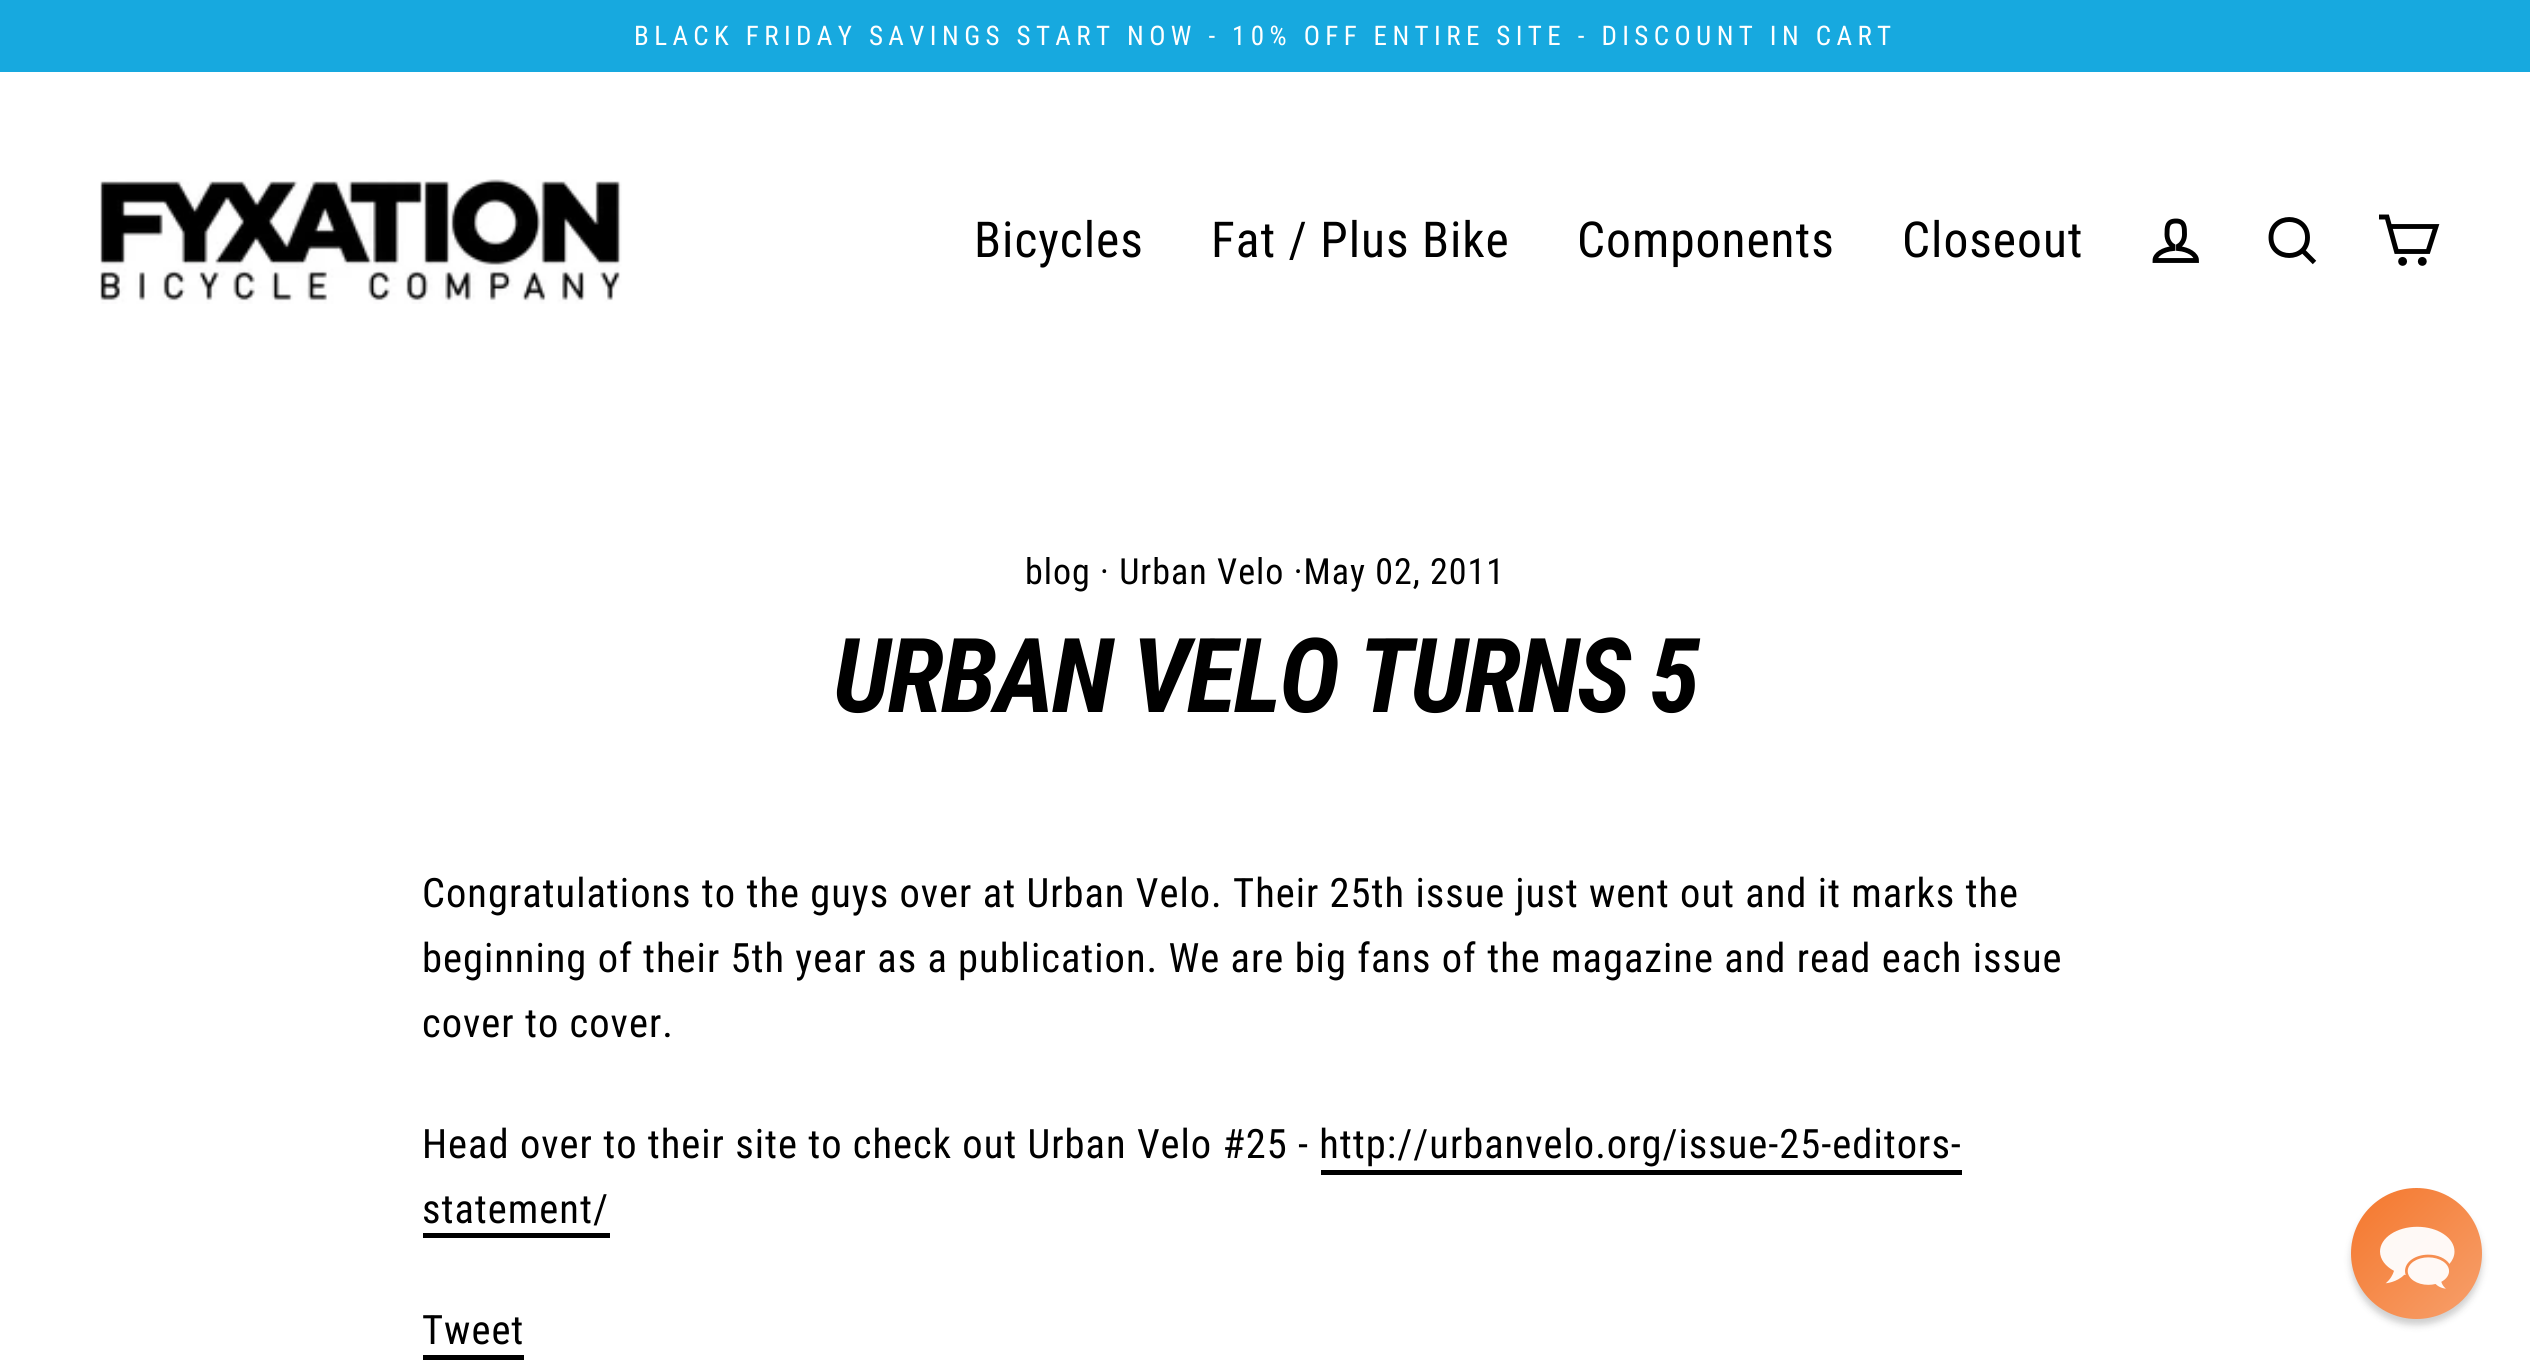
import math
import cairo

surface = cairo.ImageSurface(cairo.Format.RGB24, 2530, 1366)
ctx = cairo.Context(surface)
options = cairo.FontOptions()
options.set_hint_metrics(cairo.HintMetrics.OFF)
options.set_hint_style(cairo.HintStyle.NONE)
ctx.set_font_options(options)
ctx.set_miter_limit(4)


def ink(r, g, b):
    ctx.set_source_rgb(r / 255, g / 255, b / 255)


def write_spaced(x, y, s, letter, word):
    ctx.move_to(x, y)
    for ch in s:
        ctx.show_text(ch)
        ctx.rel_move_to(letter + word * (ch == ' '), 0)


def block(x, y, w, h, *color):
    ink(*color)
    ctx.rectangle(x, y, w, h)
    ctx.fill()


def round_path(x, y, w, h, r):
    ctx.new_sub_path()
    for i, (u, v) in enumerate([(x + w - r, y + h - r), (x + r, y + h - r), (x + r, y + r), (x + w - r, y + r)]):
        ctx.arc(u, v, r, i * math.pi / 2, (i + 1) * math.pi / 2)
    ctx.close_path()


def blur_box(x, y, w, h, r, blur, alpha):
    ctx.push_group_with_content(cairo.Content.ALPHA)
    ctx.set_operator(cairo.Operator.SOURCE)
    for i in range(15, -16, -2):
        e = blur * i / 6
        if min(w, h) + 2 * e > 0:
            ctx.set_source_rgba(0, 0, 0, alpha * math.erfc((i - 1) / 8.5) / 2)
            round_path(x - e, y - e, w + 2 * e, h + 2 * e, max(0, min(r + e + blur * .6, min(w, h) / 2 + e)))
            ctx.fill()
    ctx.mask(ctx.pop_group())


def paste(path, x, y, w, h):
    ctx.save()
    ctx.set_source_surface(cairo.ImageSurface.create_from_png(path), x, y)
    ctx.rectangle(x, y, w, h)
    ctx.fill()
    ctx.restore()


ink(255, 255, 255)
ctx.paint()
block(0, 0, 2530, 72, 23, 169, 223)
ctx.select_font_face("Roboto Condensed")
ctx.set_font_size(27)
ink(255, 255, 255)
write_spaced(634, 45, "BLACK FRIDAY SAVINGS START NOW - 10% OFF ENTIRE SITE - DISCOUNT IN CART", 5.4, 0)
paste("pic1.png", 100, 179, 522, 125)
ctx.set_font_size(49.5)
ink(0, 0, 0)
write_spaced(974, 257, "Bicycles", 1, 0)
write_spaced(1211, 257, "Fat / Plus Bike", 1, 0)
write_spaced(1577, 257, "Components", 1, 0)
write_spaced(1902, 257, "Closeout", 1, 0)
ctx.new_path()
ctx.move_to(2178.5, 248.5)
ctx.line_to(2178.5, 246)
ctx.curve_to(2182, 244, 2184.5, 239.5, 2184.5, 234.5)
ctx.curve_to(2184.5, 227, 2184.5, 221, 2176, 221)
ctx.curve_to(2167, 221, 2167, 227, 2167, 234.5)
ctx.curve_to(2167, 239.5, 2169.5, 244, 2173, 246)
ctx.line_to(2173, 248.5)
ctx.curve_to(2163, 249.5, 2155, 254.5, 2155, 260.5)
ctx.line_to(2196.5, 260.5)
ctx.curve_to(2196.5, 254.5, 2188.5, 249.5, 2178.5, 248.5)
ctx.close_path()
ctx.set_line_width(4.9)
ctx.stroke()
ctx.new_path()
ctx.move_to(2307.5, 237.5)
ctx.curve_to(2307.5, 261.5, 2271, 261.5, 2271, 237.5)
ctx.curve_to(2271, 213.5, 2307.5, 213.5, 2307.5, 237.5)
ctx.close_path()
ctx.move_to(2314.5, 262.5)
ctx.line_to(2302.5, 250.5)
ctx.stroke()
ctx.new_path()
ctx.move_to(2390, 226.5)
ctx.line_to(2436, 226.5)
ctx.line_to(2428, 251.5)
ctx.line_to(2396.5, 251.5)
ctx.line_to(2387, 217)
ctx.line_to(2379, 217)
ctx.stroke()
ctx.arc(2402.6, 261.4, 2, 0, 2 * math.pi)
ctx.fill_preserve()
ctx.stroke()
ctx.arc(2422.3, 261.4, 2, 0, 2 * math.pi)
ctx.fill_preserve()
ctx.stroke()
ctx.set_font_size(36)
write_spaced(1025, 584, "blog · Urban Velo ·May 02, 2011", 1, 0)
ctx.select_font_face("Roboto Condensed", cairo.FontSlant.ITALIC, cairo.FontWeight.BOLD)
ctx.set_font_size(103.5)
write_spaced(833, 712, "URBAN VELO TURNS 5", -2.6, 0)
ctx.select_font_face("Roboto Condensed")
ctx.set_font_size(40.5)
write_spaced(422, 907, "Congratulations to the guys over at Urban Velo. Their 25th issue just went out and it marks the", 1, 0)
write_spaced(422, 972, "beginning of their 5th year as a publication. We are big fans of the magazine and read each issue", 1, 0)
write_spaced(422, 1037, "cover to cover.", 1, 0)
write_spaced(422, 1158, "Head over to their site to check out Urban Velo #25 - http://urbanvelo.org/issue-25-editors-", 1, 0)
write_spaced(422, 1223, "statement/", 1, 0)
block(1321, 1170, 641, 5, 0, 0, 0)
block(423, 1233, 187, 5, 0, 0, 0)
write_spaced(422, 1344, "Tweet", 1, 0)
block(423, 1355, 101, 5, 0, 0, 0)
ink(13, 13, 13)
blur_box(2351, 1195, 131, 130, 65, 3.5, 0.2)
gradient = cairo.LinearGradient(2351, 1188, 2482, 1319)
gradient.add_color_stop_rgba(0, 0.957, 0.467, 0.173, 1)
gradient.add_color_stop_rgba(1, 0.969, 0.627, 0.424, 1)
ctx.set_source(gradient)
ctx.arc(2416.5, 1253.5, 65.5, 0, 2 * math.pi)
ctx.fill()
paste("pic2.png", 2380, 1226, 75, 63)
surface.write_to_png("screenshot.png")
